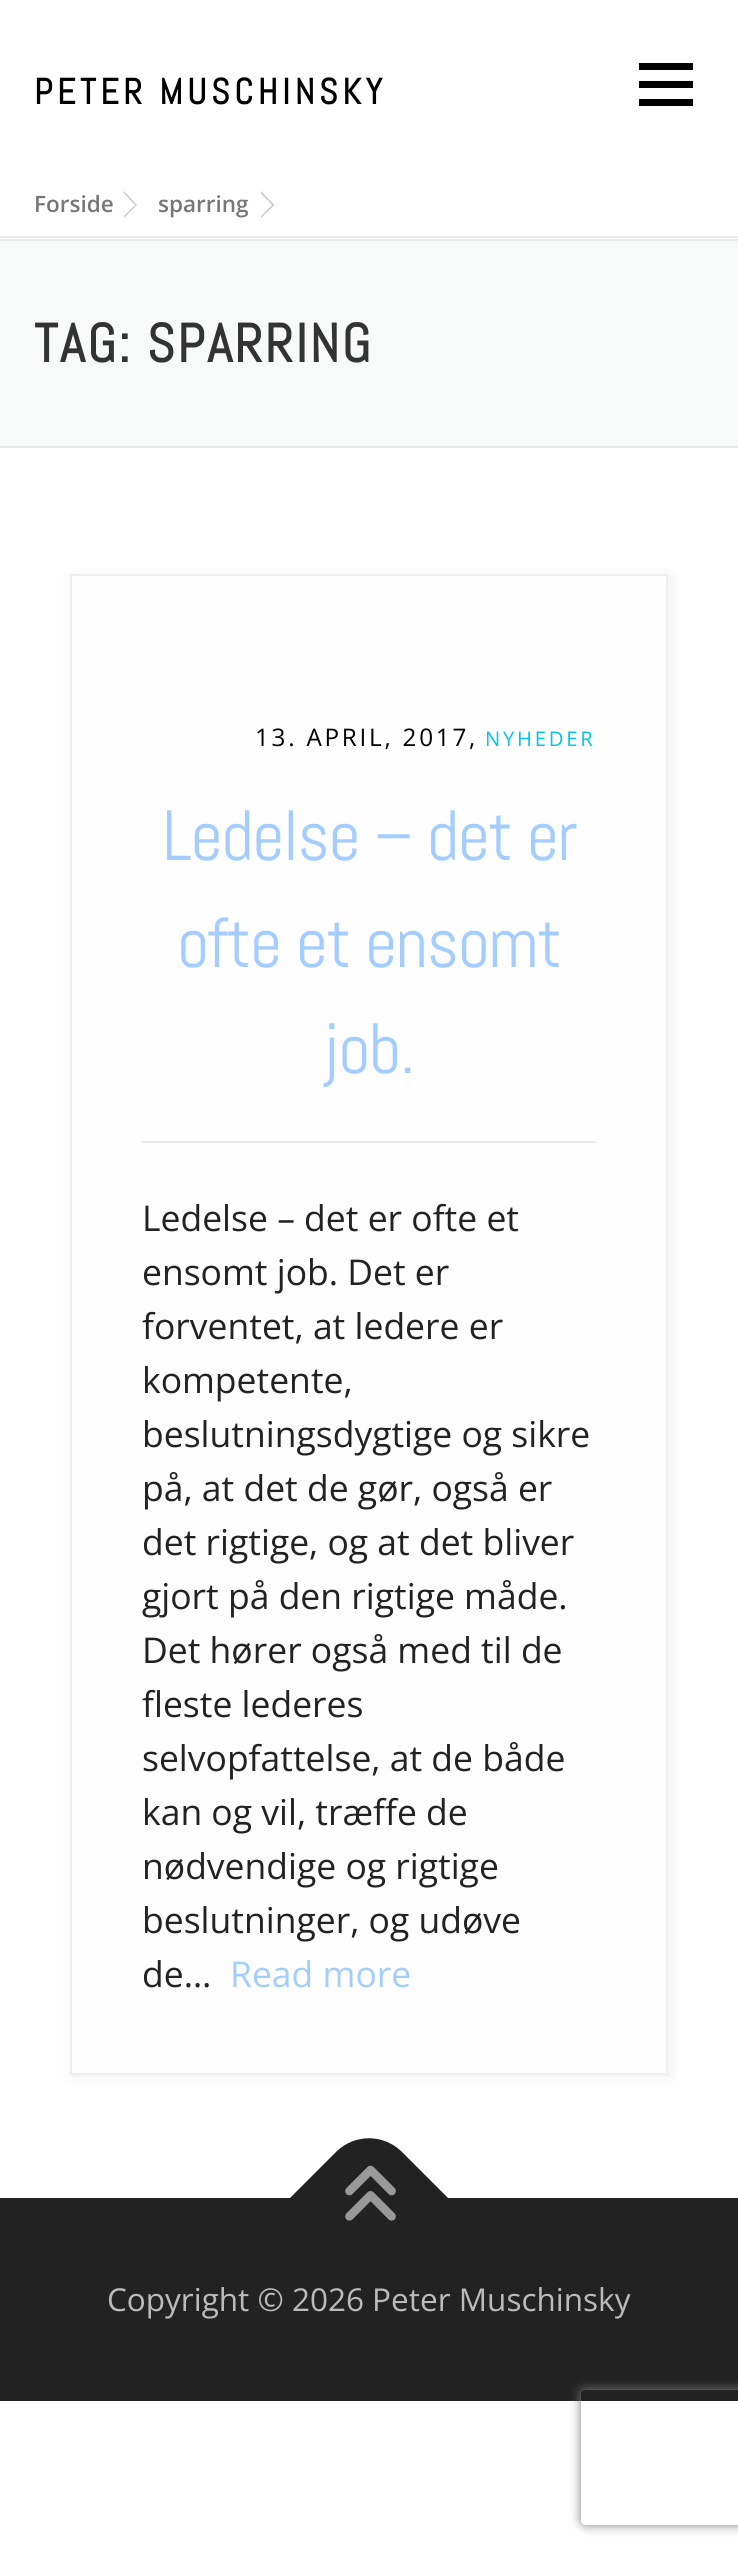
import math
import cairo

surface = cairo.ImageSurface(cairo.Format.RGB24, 738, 2554)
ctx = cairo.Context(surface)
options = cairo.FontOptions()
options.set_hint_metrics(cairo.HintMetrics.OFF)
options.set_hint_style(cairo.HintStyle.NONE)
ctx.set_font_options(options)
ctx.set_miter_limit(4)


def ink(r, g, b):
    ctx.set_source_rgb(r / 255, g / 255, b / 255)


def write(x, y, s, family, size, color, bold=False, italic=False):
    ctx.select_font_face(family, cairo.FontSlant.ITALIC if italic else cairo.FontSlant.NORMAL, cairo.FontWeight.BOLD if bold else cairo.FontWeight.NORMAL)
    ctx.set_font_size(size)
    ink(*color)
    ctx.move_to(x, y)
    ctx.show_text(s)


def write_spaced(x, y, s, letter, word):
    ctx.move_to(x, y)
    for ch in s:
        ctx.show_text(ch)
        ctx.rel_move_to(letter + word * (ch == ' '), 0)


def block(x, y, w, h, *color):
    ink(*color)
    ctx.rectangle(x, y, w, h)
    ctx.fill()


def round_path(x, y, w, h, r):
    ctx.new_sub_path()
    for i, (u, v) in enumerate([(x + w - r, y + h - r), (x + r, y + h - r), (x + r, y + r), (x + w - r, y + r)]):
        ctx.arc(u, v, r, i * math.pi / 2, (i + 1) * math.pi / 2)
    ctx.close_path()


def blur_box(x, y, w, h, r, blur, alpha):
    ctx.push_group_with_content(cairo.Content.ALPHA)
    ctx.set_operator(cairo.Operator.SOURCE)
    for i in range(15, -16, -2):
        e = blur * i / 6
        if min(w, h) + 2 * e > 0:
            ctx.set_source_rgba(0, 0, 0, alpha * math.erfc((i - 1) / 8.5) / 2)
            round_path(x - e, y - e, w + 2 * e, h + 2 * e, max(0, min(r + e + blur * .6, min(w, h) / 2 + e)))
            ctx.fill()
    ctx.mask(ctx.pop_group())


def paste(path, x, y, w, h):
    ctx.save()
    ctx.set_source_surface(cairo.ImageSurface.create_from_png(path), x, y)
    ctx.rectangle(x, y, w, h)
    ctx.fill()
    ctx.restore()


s1 = dict(family="Open Sans SemiBold", size=22.5, color=(119, 119, 119))
s2 = dict(family="Open Sans", size=35.5, color=(34, 34, 34))
s3 = dict(family="Open Sans", size=35.5, color=(163, 204, 255))
s4 = dict(family="Open Sans", size=31.5, color=(187, 187, 187))

ink(255, 255, 255)
ctx.paint()
ctx.select_font_face("Abel", cairo.FontSlant.NORMAL, cairo.FontWeight.BOLD)
ctx.set_font_size(36)
ink(0, 0, 0)
write_spaced(34, 104, "PETER MUSCHINSKY", 4.5, 0)
block(639, 81, 54, 7, 0, 0, 0)
block(639, 63, 54, 7, 0, 0, 0)
block(639, 99, 54, 7, 0, 0, 0)
block(0, 236, 738, 2, 233, 233, 233)
ink(204, 204, 204)
ctx.new_path()
ctx.move_to(124, 218)
ctx.line_to(124, 191)
ctx.line_to(137, 205)
ctx.close_path()
ctx.fill()
write(34, 212, "Forside", **s1)
ink(255, 255, 255)
ctx.new_path()
ctx.move_to(124, 216)
ctx.line_to(124, 193.5)
ctx.line_to(135, 205)
ctx.close_path()
ctx.fill()
ink(204, 204, 204)
ctx.new_path()
ctx.move_to(261, 218)
ctx.line_to(261, 191)
ctx.line_to(274.5, 205)
ctx.close_path()
ctx.fill()
write(158, 212, "sparring", **s1)
ink(255, 255, 255)
ctx.new_path()
ctx.move_to(261, 216)
ctx.line_to(261, 193.5)
ctx.line_to(272, 205)
ctx.close_path()
ctx.fill()
block(0, 241, 738, 205, 248, 249, 249)
block(0, 239, 738, 2, 233, 233, 233)
block(0, 446, 738, 2, 233, 233, 233)
ctx.select_font_face("Abel", cairo.FontSlant.NORMAL, cairo.FontWeight.BOLD)
ctx.set_font_size(54)
ink(51, 51, 51)
write_spaced(34, 362, "TAG: SPARRING", 2.25, 0)
ink(238, 238, 238)
blur_box(72, 576, 599, 1501, 0, 5.5, 1)
ink(254, 254, 255)
ctx.rectangle(71, 575, 596, 1499)
ctx.fill_preserve()
ink(238, 238, 238)
ctx.stroke()
ctx.select_font_face("Open Sans")
ctx.set_font_size(24.25)
ink(0, 0, 0)
write_spaced(255, 746, "13. APRIL, 2017,", 2.75, 0)
ctx.set_font_size(20.25)
ink(3, 196, 235)
write_spaced(485, 746, "NYHEDER", 2.75, 0)
ctx.select_font_face("Abel")
ctx.set_font_size(71)
ink(163, 204, 255)
write_spaced(162, 860, "Ledelse – det er", -1.4, 0)
write_spaced(177, 967, "ofte et ensomt", -1.4, 0)
write_spaced(324, 1073, "job.", -1.4, 0)
block(142, 1141, 454, 2, 233, 233, 233)
write(142, 1231, "Ledelse – det er ofte et", **s2)
write(142, 1285, "ensomt job. Det er", **s2)
write(142, 1339, "forventet, at ledere er", **s2)
write(142, 1393, "kompetente,", **s2)
write(142, 1447, "beslutningsdygtige og sikre", **s2)
write(142, 1501, "på, at det de gør, også er", **s2)
write(142, 1555, "det rigtige, og at det bliver", **s2)
write(142, 1609, "gjort på den rigtige måde.", **s2)
write(142, 1663, "Det hører også med til de", **s2)
write(142, 1717, "fleste lederes", **s2)
write(142, 1771, "selvopfattelse, at de både", **s2)
write(142, 1825, "kan og vil, træffe de", **s2)
write(142, 1879, "nødvendige og rigtige", **s2)
write(142, 1933, "beslutninger, og udøve", **s2)
write(142, 1987, "de…", **s2)
write(230, 1987, "Read more", **s3)
block(0, 2198, 738, 203, 34, 34, 34)
ctx.new_path()
ctx.move_to(289, 2199)
ctx.line_to(337, 2151)
ctx.curve_to(355, 2134, 383, 2134, 401, 2151)
ctx.line_to(449, 2199)
ctx.line_to(369, 2279)
ctx.close_path()
ctx.fill()
paste("pic1.png", 345, 2165, 51, 56)
write(107, 2311, "Copyright © 2026 Peter Muschinsky", **s4)
ctx.save()
ctx.set_fill_rule(cairo.FillRule.EVEN_ODD)
ctx.new_path()
ctx.move_to(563, 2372)
ctx.line_to(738, 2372)
ctx.line_to(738, 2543)
ctx.line_to(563, 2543)
ctx.close_path()
ctx.move_to(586, 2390)
ctx.line_to(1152, 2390)
ctx.curve_to(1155, 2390, 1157, 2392, 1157, 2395)
ctx.line_to(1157, 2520)
ctx.curve_to(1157, 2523, 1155, 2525, 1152, 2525)
ctx.line_to(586, 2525)
ctx.curve_to(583, 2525, 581, 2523, 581, 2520)
ctx.line_to(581, 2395)
ctx.curve_to(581, 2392, 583, 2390, 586, 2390)
ctx.close_path()
ctx.clip()
ink(128, 128, 128)
blur_box(581, 2390, 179, 135, 5, 5.5, 1)
ctx.restore()
surface.write_to_png("screenshot.png")
